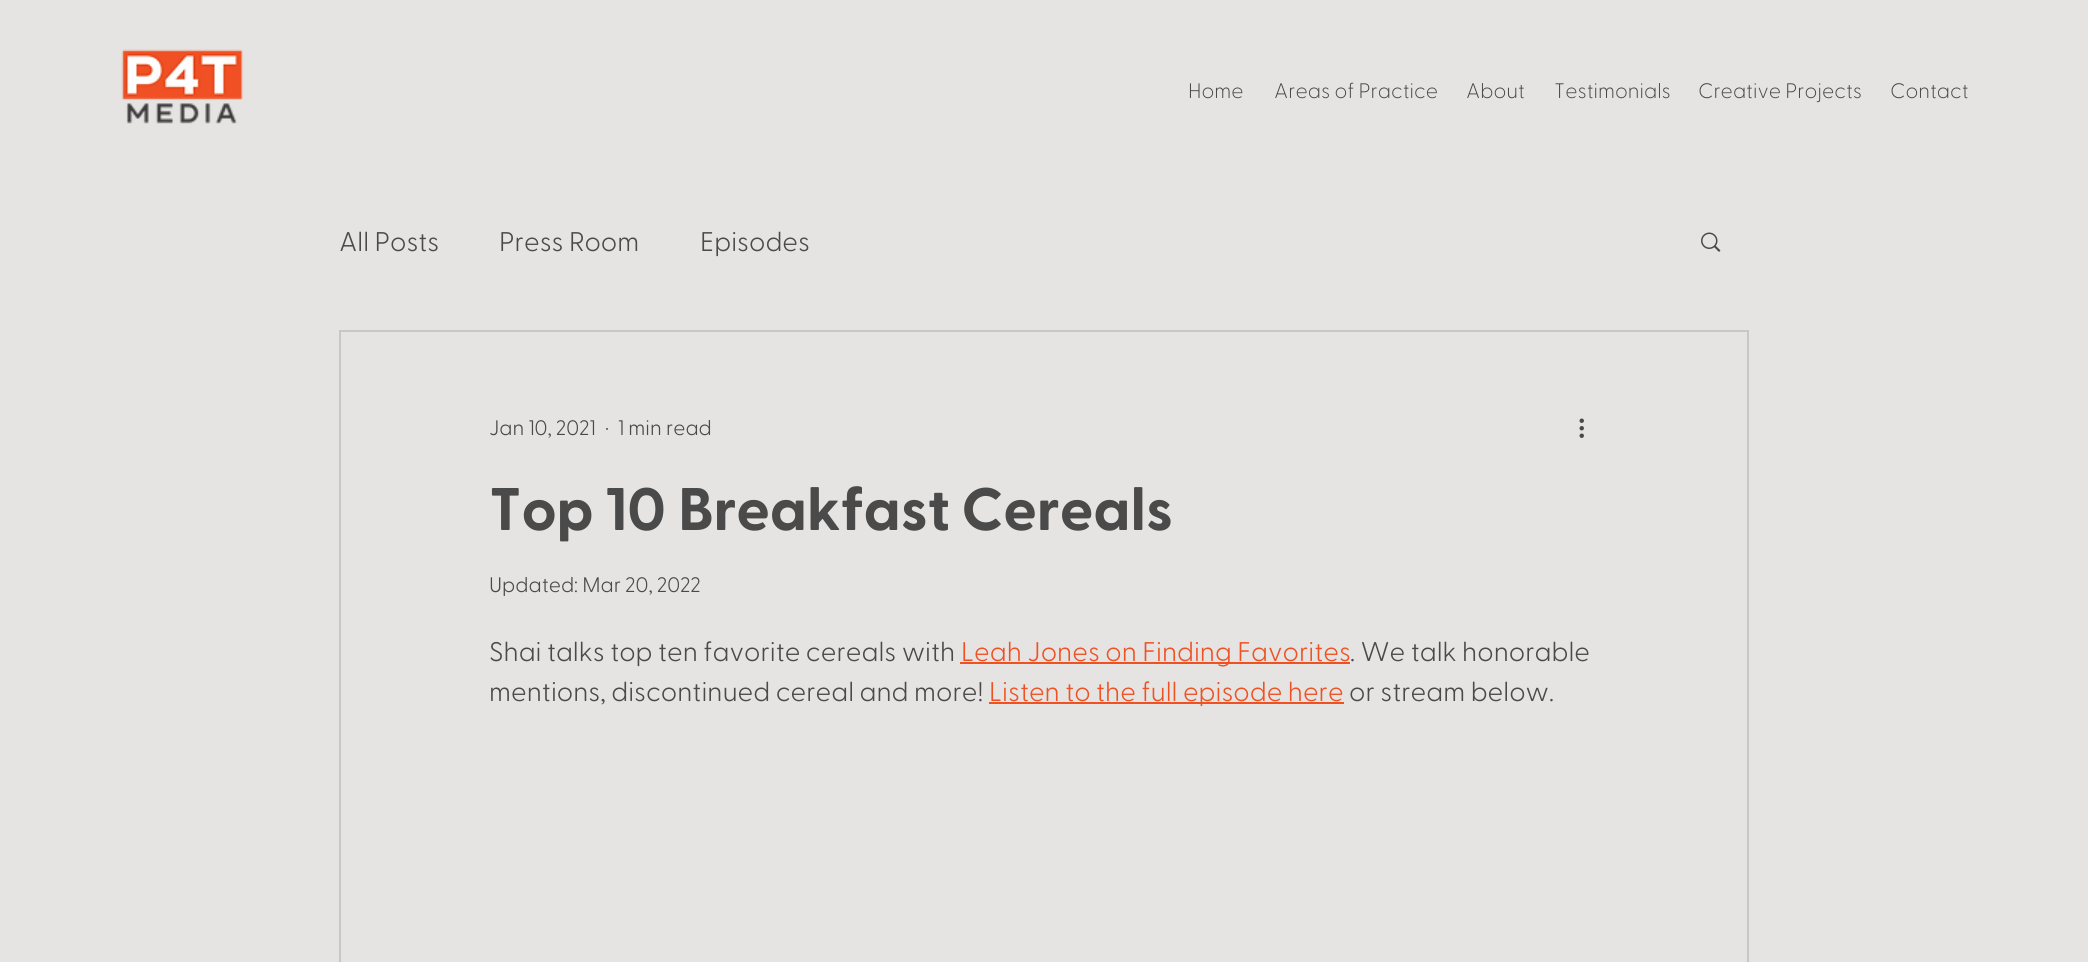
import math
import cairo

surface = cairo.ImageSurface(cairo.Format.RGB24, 2088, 962)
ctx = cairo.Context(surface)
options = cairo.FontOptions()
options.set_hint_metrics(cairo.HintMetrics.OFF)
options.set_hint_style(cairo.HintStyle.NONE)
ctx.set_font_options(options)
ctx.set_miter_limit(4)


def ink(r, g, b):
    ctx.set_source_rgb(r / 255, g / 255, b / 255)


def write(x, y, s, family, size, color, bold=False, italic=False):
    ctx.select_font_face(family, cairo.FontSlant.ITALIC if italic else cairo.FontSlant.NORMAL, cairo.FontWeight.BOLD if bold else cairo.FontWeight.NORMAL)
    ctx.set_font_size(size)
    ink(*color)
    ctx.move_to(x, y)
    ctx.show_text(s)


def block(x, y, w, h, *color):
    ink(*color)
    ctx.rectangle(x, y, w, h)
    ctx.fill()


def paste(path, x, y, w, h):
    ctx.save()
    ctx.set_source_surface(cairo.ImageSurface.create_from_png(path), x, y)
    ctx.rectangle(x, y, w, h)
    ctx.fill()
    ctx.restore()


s1 = dict(family="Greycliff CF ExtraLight", size=21, color=(74, 74, 74))
s2 = dict(family="Greycliff CF Light", size=27, color=(74, 74, 74))
s3 = dict(family="Greycliff CF Light", size=21, color=(74, 74, 74))
s4 = dict(family="Greycliff CF", size=60, color=(74, 74, 74), bold=True)
s5 = dict(family="Greycliff CF Light", size=27, color=(240, 81, 35))

ink(229, 228, 227)
ctx.paint()
paste("pic1.png", 121, 49, 123, 75)
write(1188, 98, "Home", **s1)
write(1274, 98, "Areas of Practice", **s1)
write(1466, 98, "About", **s1)
write(1554, 98, "Testimonials", **s1)
write(1698, 98, "Creative Projects", **s1)
write(1890, 98, "Contact", **s1)
write(339, 251, "All Posts", **s2)
write(499, 251, "Press Room", **s2)
write(700, 251, "Episodes", **s2)
paste("pic2.png", 1701, 232, 20, 20)
ctx.rectangle(340, 331, 1408, 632)
ink(199, 199, 199)
ctx.stroke()
write(489, 435, "Jan 10, 2021", **s3)
write(605, 435, "·", **s3)
write(618, 435, "1 min read", **s3)
paste("pic3.png", 1579, 418, 5, 20)
write(489, 530, "Top 10 Breakfast Cereals", **s4)
write(489, 592, "Updated: Mar 20, 2022", **s3)
write(489, 661, "Shai talks top ten favorite cereals with", **s2)
block(960, 662, 390, 2, 240, 81, 35)
write(961, 661, "Leah Jones on Finding Favorites", **s5)
write(1350, 661, ". We talk honorable", **s2)
write(489, 701, "mentions, discontinued cereal and more!", **s2)
block(989, 702, 355, 2, 240, 81, 35)
write(989, 701, "Listen to the full episode here", **s5)
write(1349, 701, "or stream below.", **s2)
surface.write_to_png("screenshot.png")
